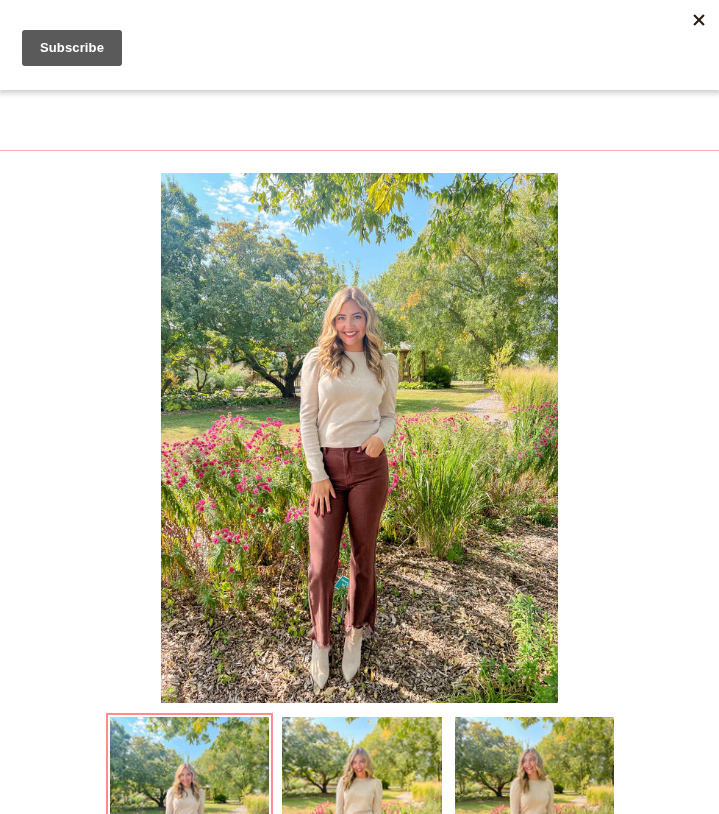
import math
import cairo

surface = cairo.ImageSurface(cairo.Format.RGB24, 719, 814)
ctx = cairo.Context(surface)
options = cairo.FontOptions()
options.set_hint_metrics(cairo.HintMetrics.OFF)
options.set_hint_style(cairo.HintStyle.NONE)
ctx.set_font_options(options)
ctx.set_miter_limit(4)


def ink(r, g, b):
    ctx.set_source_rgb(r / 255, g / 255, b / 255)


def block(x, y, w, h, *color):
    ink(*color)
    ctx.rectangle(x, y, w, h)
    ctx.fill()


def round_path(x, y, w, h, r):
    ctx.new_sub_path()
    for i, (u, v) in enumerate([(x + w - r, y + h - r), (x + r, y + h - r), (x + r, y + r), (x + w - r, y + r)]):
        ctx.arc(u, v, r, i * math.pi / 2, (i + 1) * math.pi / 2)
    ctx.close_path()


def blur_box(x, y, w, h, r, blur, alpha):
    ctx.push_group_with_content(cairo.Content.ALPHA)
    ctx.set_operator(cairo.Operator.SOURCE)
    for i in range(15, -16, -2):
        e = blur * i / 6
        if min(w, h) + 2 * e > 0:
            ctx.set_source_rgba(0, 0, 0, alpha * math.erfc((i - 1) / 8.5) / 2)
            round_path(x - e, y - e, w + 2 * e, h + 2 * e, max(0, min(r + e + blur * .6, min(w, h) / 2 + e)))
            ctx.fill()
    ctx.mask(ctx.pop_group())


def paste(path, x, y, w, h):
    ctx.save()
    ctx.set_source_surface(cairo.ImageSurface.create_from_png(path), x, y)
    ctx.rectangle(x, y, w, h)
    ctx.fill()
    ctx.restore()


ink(255, 255, 255)
ctx.paint()
ink(0, 0, 0)
blur_box(0, 3, 719, 90, 0, 3, 0.2)
block(0, 0, 719, 90, 255, 255, 255)
paste("pic1.png", 22, 14, 683, 52)
block(0, 150, 719, 1, 255, 173, 173)
paste("pic2.png", 161, 173, 397, 530)
ctx.rectangle(107, 714, 165, 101)
ink(255, 141, 141)
ctx.stroke()
paste("pic3.png", 110, 717, 159, 97)
paste("pic4.png", 282, 717, 160, 97)
paste("pic5.png", 455, 717, 159, 97)
surface.write_to_png("screenshot.png")
